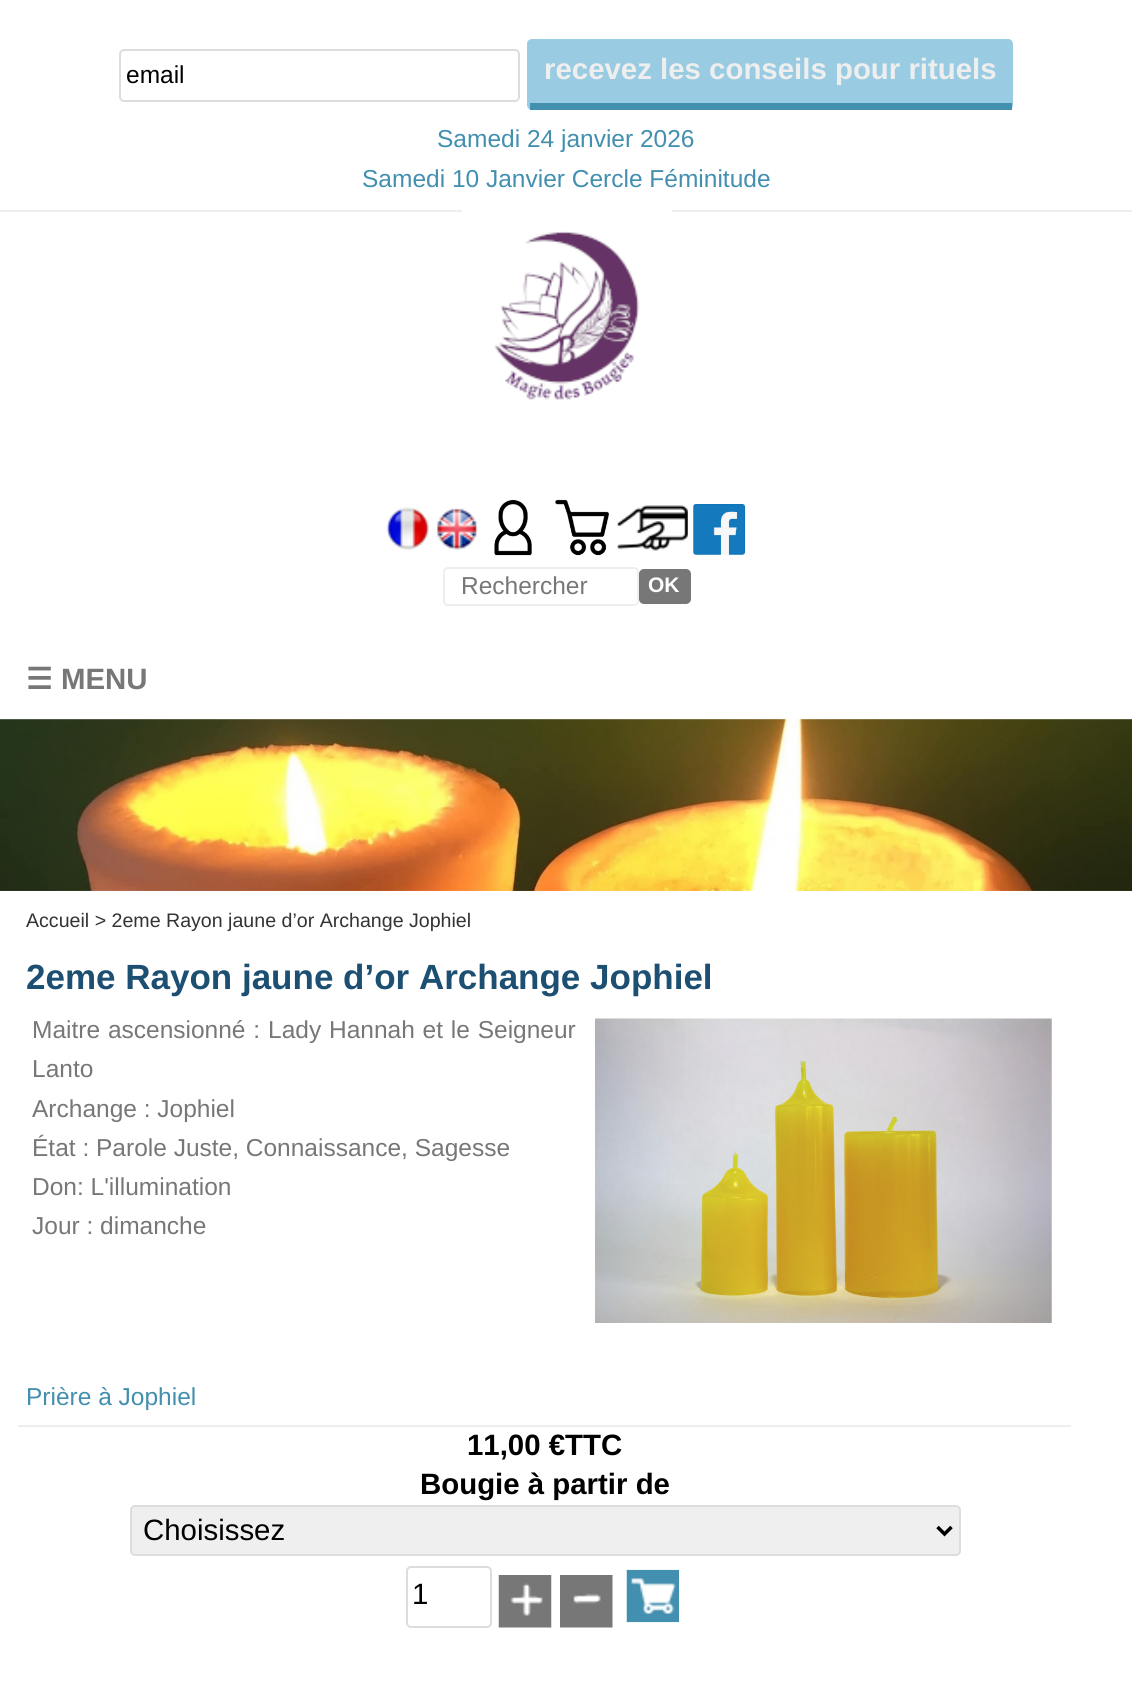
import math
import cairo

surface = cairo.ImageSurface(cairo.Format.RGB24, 1132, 1686)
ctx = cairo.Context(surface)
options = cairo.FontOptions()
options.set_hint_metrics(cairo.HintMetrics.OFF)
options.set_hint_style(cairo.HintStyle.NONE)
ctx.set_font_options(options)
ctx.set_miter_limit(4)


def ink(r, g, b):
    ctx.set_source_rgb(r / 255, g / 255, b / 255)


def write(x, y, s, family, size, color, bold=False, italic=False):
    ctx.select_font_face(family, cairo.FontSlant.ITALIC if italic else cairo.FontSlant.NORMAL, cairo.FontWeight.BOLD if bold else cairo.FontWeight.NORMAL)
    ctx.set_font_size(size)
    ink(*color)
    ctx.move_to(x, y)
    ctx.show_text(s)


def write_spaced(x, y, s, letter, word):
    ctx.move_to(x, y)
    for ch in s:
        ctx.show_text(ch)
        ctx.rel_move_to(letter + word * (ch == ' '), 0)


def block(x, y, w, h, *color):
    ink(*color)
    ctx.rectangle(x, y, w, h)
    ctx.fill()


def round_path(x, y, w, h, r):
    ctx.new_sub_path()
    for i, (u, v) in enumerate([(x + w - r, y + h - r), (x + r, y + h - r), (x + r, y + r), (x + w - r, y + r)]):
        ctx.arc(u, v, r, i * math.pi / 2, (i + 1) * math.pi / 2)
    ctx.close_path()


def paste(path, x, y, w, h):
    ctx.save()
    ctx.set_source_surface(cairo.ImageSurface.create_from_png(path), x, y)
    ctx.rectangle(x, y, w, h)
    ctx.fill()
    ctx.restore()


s1 = dict(family="Liberation Sans", size=24.5, color=(0, 0, 0))
s2 = dict(family="Liberation Sans", size=29.4, color=(238, 238, 238), bold=True)
s3 = dict(family="Liberation Sans", size=24.5, color=(66, 143, 175))
s4 = dict(family="Liberation Sans", size=24.5, color=(119, 119, 119))
s5 = dict(family="Liberation Sans", size=21, color=(255, 255, 255), bold=True)
s6 = dict(family="DejaVu Sans", size=29.4, color=(119, 119, 119), bold=True)
s7 = dict(family="Liberation Sans", size=29.4, color=(119, 119, 119), bold=True)
s8 = dict(family="Liberation Sans", size=19.6, color=(51, 51, 51))
s9 = dict(family="Liberation Sans", size=35, color=(29, 79, 115), bold=True)
s10 = dict(family="Liberation Sans", size=29.4, color=(0, 0, 0), bold=True)
s11 = dict(family="Liberation Sans", size=29.4, color=(0, 0, 0))

ink(255, 255, 255)
ctx.paint()
round_path(120, 50, 399, 51, 4)
ink(221, 221, 221)
ctx.stroke()
write(126, 83, "email", **s1)
ink(153, 204, 226)
round_path(527, 39, 486, 71, 5)
ctx.fill()
block(530, 103, 482, 7, 66, 143, 175)
write(544, 79, "recevez les conseils pour rituels", **s2)
write(437, 147, "Samedi 24 janvier 2026", **s3)
write(362, 187, "Samedi 10 Janvier Cercle Féminitude", **s3)
block(0, 210, 1132, 2, 238, 238, 238)
paste("pic1.png", 462, 210, 210, 190)
paste("pic2.png", 386, 507, 43, 43)
paste("pic3.png", 436, 508, 42, 42)
paste("pic4.png", 494, 499, 38, 57)
paste("pic5.png", 555, 499, 54, 57)
paste("pic6.png", 617, 505, 71, 46)
paste("pic7.png", 693, 504, 53, 51)
round_path(444, 568, 194, 37, 4)
ctx.stroke()
write(461, 594, "Rechercher", **s4)
round_path(639, 569, 52, 35, 5)
ctx.fill()
write(648, 592, "OK", **s5)
write(26, 689, "☰", **s6)
write(61, 689, "MENU", **s7)
paste("pic8.png", 0, 719, 1132, 172)
write(26, 927, "Accueil > 2eme Rayon jaune d’or Archange Jophiel", **s8)
block(18, 1425, 1053, 2, 238, 238, 238)
write(26, 989, "2eme Rayon jaune d’or Archange Jophiel", **s9)
ctx.select_font_face("Liberation Sans")
ctx.set_font_size(24.5)
ink(119, 119, 119)
write_spaced(32, 1038, "Maitre ascensionné :", 0, 1)
write_spaced(268, 1038, "Lady Hannah et le Seigneur", 0, 1)
write(32, 1077, "Lanto", **s4)
write(32, 1117, "Archange : Jophiel", **s4)
write(32, 1156, "État : Parole Juste, Connaissance, Sagesse", **s4)
write(32, 1195, "Don: L'illumination", **s4)
write(32, 1234, "Jour : dimanche", **s4)
paste("pic9.png", 595, 1018, 457, 305)
write(26, 1405, "Prière à Jophiel", **s3)
write(467, 1455, "11,00 €TTC", **s10)
write(420, 1494, "Bougie à partir de", **s10)
ink(239, 239, 239)
round_path(131, 1506, 829, 49, 4)
ctx.fill_preserve()
ink(221, 221, 221)
ctx.stroke()
ctx.new_path()
ctx.move_to(937.5, 1527)
ctx.line_to(944.5, 1534)
ctx.line_to(951.5, 1527)
ink(0, 0, 0)
ctx.set_line_width(3.5)
ctx.stroke()
write(143, 1540, "Choisissez", **s11)
round_path(407, 1567, 84, 60, 4)
ink(221, 221, 221)
ctx.set_line_width(2)
ctx.stroke()
write(412, 1604, "1", **s11)
paste("pic10.png", 498, 1575, 54, 53)
paste("pic11.png", 560, 1575, 53, 53)
paste("pic12.png", 626, 1569, 53, 54)
surface.write_to_png("screenshot.png")
